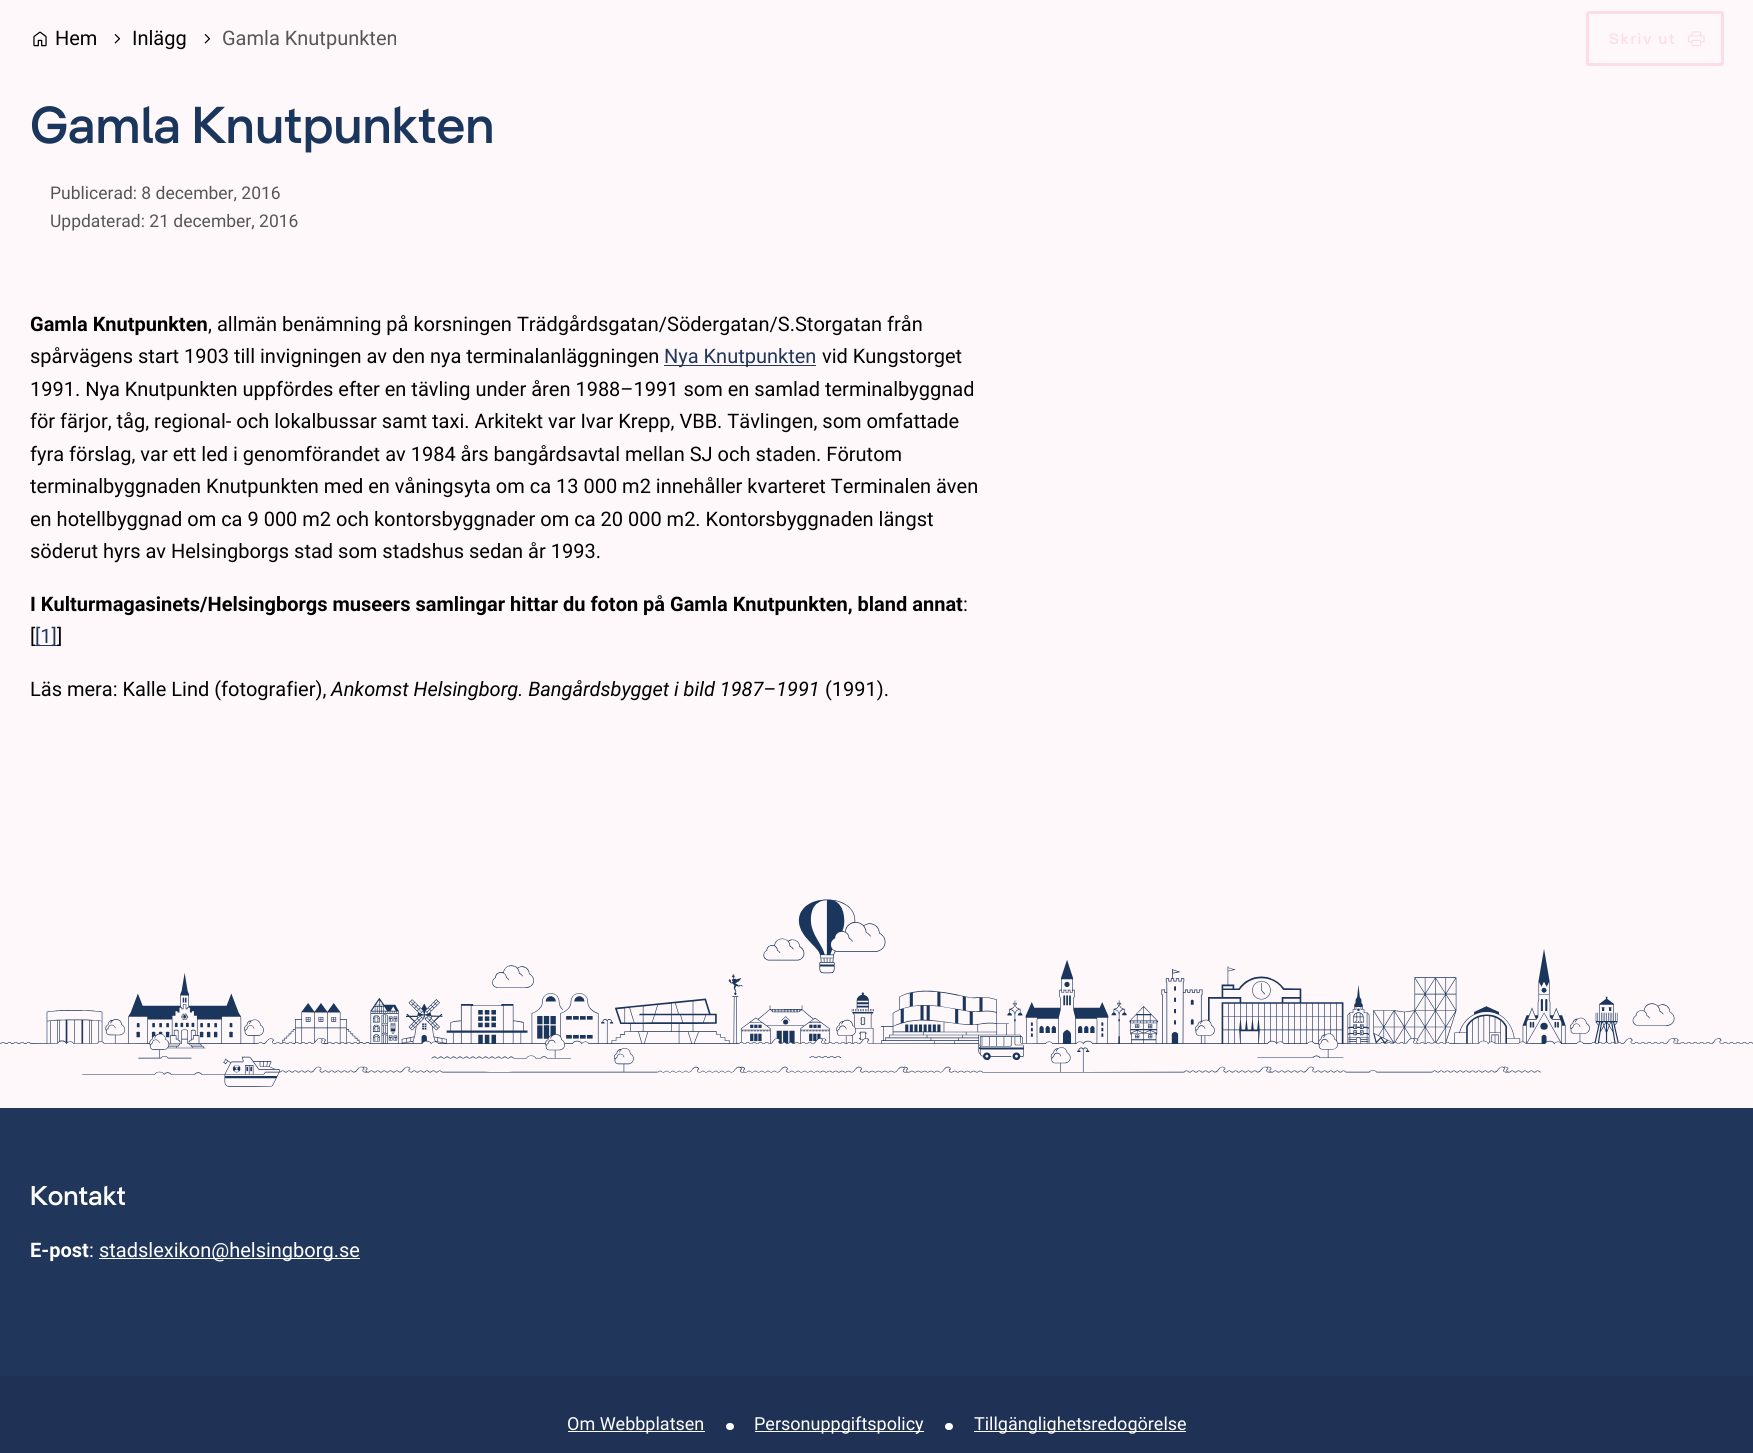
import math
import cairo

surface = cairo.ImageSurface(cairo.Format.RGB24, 1753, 1453)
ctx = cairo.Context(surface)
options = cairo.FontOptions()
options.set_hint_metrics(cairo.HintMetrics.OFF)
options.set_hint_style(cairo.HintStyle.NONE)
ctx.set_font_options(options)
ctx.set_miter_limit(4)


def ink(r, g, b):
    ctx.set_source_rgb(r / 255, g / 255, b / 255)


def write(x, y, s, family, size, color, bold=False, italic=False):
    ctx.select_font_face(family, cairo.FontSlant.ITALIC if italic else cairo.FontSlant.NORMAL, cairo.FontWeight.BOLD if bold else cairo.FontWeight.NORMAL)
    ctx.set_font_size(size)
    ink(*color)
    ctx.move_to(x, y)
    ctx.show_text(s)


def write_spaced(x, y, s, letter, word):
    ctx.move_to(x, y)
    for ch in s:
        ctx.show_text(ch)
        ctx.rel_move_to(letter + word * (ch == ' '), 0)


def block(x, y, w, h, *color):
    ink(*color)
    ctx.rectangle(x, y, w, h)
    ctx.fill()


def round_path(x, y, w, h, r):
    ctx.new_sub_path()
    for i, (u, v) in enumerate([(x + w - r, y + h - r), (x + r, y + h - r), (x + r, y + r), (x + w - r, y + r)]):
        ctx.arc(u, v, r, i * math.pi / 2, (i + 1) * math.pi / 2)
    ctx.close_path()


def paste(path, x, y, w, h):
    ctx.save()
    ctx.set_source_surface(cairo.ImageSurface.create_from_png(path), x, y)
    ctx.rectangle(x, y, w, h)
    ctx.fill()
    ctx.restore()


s1 = dict(family="Roboto", size=20, color=(0, 0, 0))
s2 = dict(family="Roboto", size=20, color=(86, 86, 86))
s3 = dict(family="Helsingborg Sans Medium", size=52.5, color=(27, 54, 93))
s4 = dict(family="Roboto", size=17.5, color=(86, 86, 86))
s5 = dict(family="Roboto", size=20, color=(0, 0, 0), bold=True)
s6 = dict(family="Roboto", size=20, color=(33, 54, 91))
s7 = dict(family="Roboto", size=20, color=(0, 0, 0), italic=True)
s8 = dict(family="Helsingborg Sans Medium", size=27.5, color=(255, 255, 255))
s9 = dict(family="Roboto", size=20, color=(255, 255, 255), bold=True)
s10 = dict(family="Roboto", size=20, color=(255, 255, 255))
s11 = dict(family="Roboto", size=18, color=(255, 255, 255))

ink(255, 248, 250)
ctx.paint()
paste("pic1.png", 33, 31, 14, 16)
write(55, 45, "Hem", **s1)
paste("pic2.png", 114, 34, 7, 10)
write(132, 45, "Inlägg", **s1)
paste("pic2.png", 204, 34, 7, 10)
write(222, 45, "Gamla Knutpunkten", **s2)
round_path(1587.5, 12.5, 135, 52, 1)
ink(253, 221, 229)
ctx.set_line_width(3)
ctx.stroke()
ctx.select_font_face("Helsingborg Sans Medium")
ctx.set_font_size(15.5)
write_spaced(1609, 44, "Skriv ut", 2, 0)
paste("pic3.png", 1688, 31, 17, 16)
write(30, 143, "Gamla Knutpunkten", **s3)
write(50, 199, "Publicerad: 8 december, 2016", **s4)
write(50, 227, "Uppdaterad: 21 december, 2016", **s4)
write(30, 331, "Gamla Knutpunkten", **s5)
write(208, 331, ", allmän benämning på korsningen Trädgårdsgatan/Södergatan/S.Storgatan från", **s1)
write(30, 363, "spårvägens start 1903 till invigningen av den nya terminalanläggningen", **s1)
block(664, 365, 152, 1, 33, 54, 91)
write(664, 363, "Nya Knutpunkten", **s6)
write(822, 363, "vid Kungstorget", **s1)
write(30, 396, "1991. Nya Knutpunkten uppfördes efter en tävling under åren 1988–1991 som en samlad terminalbyggnad", **s1)
write(30, 428, "för färjor, tåg, regional- och lokalbussar samt taxi. Arkitekt var Ivar Krepp, VBB. Tävlingen, som omfattade", **s1)
write(30, 461, "fyra förslag, var ett led i genomförandet av 1984 års bangårdsavtal mellan SJ och staden. Förutom", **s1)
write(30, 493, "terminalbyggnaden Knutpunkten med en våningsyta om ca 13 000 m2 innehåller kvarteret Terminalen även", **s1)
write(30, 526, "en hotellbyggnad om ca 9 000 m2 och kontorsbyggnader om ca 20 000 m2. Kontorsbyggnaden längst", **s1)
write(30, 558, "söderut hyrs av Helsingborgs stad som stadshus sedan år 1993.", **s1)
write(30, 611, "I Kulturmagasinets/Helsingborgs museers samlingar hittar du foton på Gamla Knutpunkten, bland annat", **s5)
write(963, 611, ":", **s1)
write(30, 643, "[", **s1)
block(35, 645, 23, 1, 33, 54, 91)
write(35, 643, "[1]", **s6)
write(57, 643, "]", **s1)
write(30, 696, "Läs mera: Kalle Lind (fotografier),", **s1)
write(331, 696, "Ankomst Helsingborg. Bangårdsbygget i bild 1987–1991", **s7)
write(825, 696, "(1991).", **s1)
block(0, 1108, 1753, 268, 33, 54, 91)
paste("pic4.png", 0, 899, 1753, 188)
write(30, 1205, "Kontakt", **s8)
write(30, 1257, "E-post", **s9)
write(89, 1257, ":", **s10)
block(99, 1258, 261, 1, 255, 255, 255)
write(99, 1257, "stadslexikon@helsingborg.se", **s10)
block(0, 1376, 1753, 77, 31, 50, 85)
block(568, 1431, 137, 1, 255, 255, 255)
write(567, 1430, "Om Webbplatsen", **s11)
round_path(726, 1423, 8, 7, 3.5)
ctx.fill()
block(755, 1431, 169, 1, 255, 255, 255)
write(754, 1430, "Personuppgiftspolicy", **s11)
round_path(945, 1423, 8, 7, 3.5)
ctx.fill()
block(974, 1431, 212, 1, 255, 255, 255)
write(974, 1430, "Tillgänglighetsredogörelse", **s11)
surface.write_to_png("screenshot.png")
